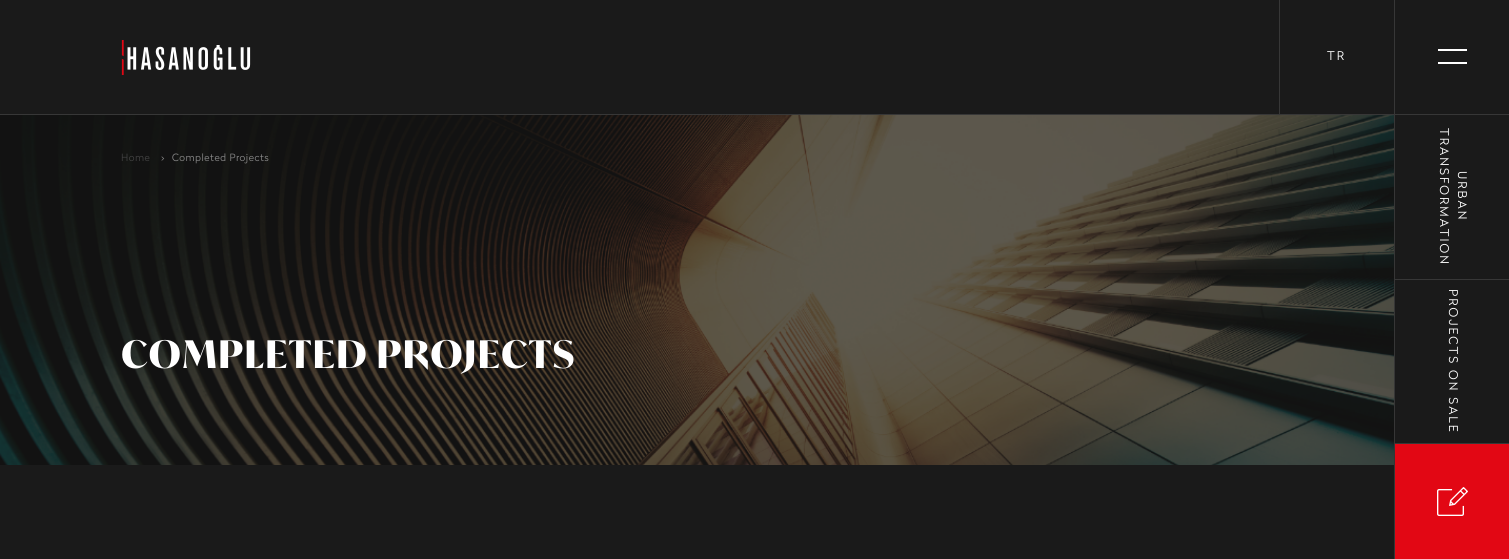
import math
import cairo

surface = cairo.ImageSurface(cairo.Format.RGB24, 1509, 559)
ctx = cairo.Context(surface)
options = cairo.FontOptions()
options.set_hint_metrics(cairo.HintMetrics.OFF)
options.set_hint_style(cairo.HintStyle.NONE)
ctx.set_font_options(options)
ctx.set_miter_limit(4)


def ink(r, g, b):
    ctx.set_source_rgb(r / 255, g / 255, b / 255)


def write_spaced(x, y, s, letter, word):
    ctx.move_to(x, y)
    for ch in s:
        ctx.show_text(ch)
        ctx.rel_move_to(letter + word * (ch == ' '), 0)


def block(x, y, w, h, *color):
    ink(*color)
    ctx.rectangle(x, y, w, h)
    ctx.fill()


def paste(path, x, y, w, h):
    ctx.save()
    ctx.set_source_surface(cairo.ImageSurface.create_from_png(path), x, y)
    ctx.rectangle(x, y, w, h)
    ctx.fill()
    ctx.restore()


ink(26, 26, 26)
ctx.paint()
paste("pic1.png", 0, 115, 1394, 350)
ctx.select_font_face("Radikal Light")
ctx.set_font_size(10)
ink(66, 66, 66)
write_spaced(121, 161, "Home", 0.5, 0)
ink(137, 137, 137)
write_spaced(161, 162, ">", 0.5, 0)
write_spaced(172, 161, "Completed Projects", 0.5, 0)
ctx.select_font_face("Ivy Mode", cairo.FontSlant.NORMAL, cairo.FontWeight.BOLD)
ctx.set_font_size(38)
ink(255, 255, 255)
write_spaced(121, 368, "COMPLETED PROJECTS", 1.1, 0)
block(0, 114, 1509, 1, 55, 55, 55)
paste("pic2.png", 121, 40, 130, 35)
block(1279, 0, 1, 114, 55, 55, 55)
ctx.select_font_face("Radikal Light")
ctx.set_font_size(12)
ink(255, 255, 255)
write_spaced(1327, 60, "TR", 2, 0)
block(1394, 0, 1, 114, 55, 55, 55)
block(1438, 49, 29, 2, 255, 255, 255)
block(1438, 62, 29, 2, 255, 255, 255)
ink(55, 55, 55)
ctx.new_path()
ctx.move_to(1509, 280)
ctx.line_to(1394, 280)
ctx.line_to(1395, 279)
ctx.line_to(1509, 279)
ctx.close_path()
ctx.fill()
ctx.set_source_rgba(0.847, 0.847, 0.847, 0.15)
ctx.new_path()
ctx.move_to(1394, 280)
ctx.line_to(1394, 115)
ctx.line_to(1395, 115)
ctx.line_to(1395, 279)
ctx.close_path()
ctx.fill()
ink(255, 255, 255)
ctx.save()
ctx.translate(1440, 128)
ctx.rotate(90 * math.pi / 180)
write_spaced(0, 0, "TRANSFORMATION", 2, 0)
ctx.restore()
ctx.save()
ctx.translate(1458, 171)
ctx.rotate(90 * math.pi / 180)
write_spaced(0, 0, "URBAN", 2, 0)
ctx.restore()
ink(55, 55, 55)
ctx.new_path()
ctx.move_to(1509, 444)
ctx.line_to(1394, 444)
ctx.line_to(1395, 443)
ctx.line_to(1509, 443)
ctx.close_path()
ctx.fill()
ctx.set_source_rgba(0.847, 0.847, 0.847, 0.15)
ctx.new_path()
ctx.move_to(1394, 444)
ctx.line_to(1394, 280)
ctx.line_to(1395, 280)
ctx.line_to(1395, 443)
ctx.close_path()
ctx.fill()
ink(255, 255, 255)
ctx.save()
ctx.translate(1449, 289)
ctx.rotate(90 * math.pi / 180)
write_spaced(0, 0, "PROJECTS ON SALE", 2, 0)
ctx.restore()
ink(55, 55, 55)
ctx.new_path()
ctx.move_to(1509, 559)
ctx.line_to(1394, 559)
ctx.line_to(1395, 558)
ctx.line_to(1509, 558)
ctx.close_path()
ctx.fill()
ctx.set_source_rgba(0.847, 0.847, 0.847, 0.15)
ctx.new_path()
ctx.move_to(1394, 559)
ctx.line_to(1394, 444)
ctx.line_to(1395, 444)
ctx.line_to(1395, 558)
ctx.close_path()
ctx.fill()
block(1395, 444, 114, 115, 226, 7, 20)
paste("pic3.png", 1437, 487, 31, 29)
surface.write_to_png("screenshot.png")
